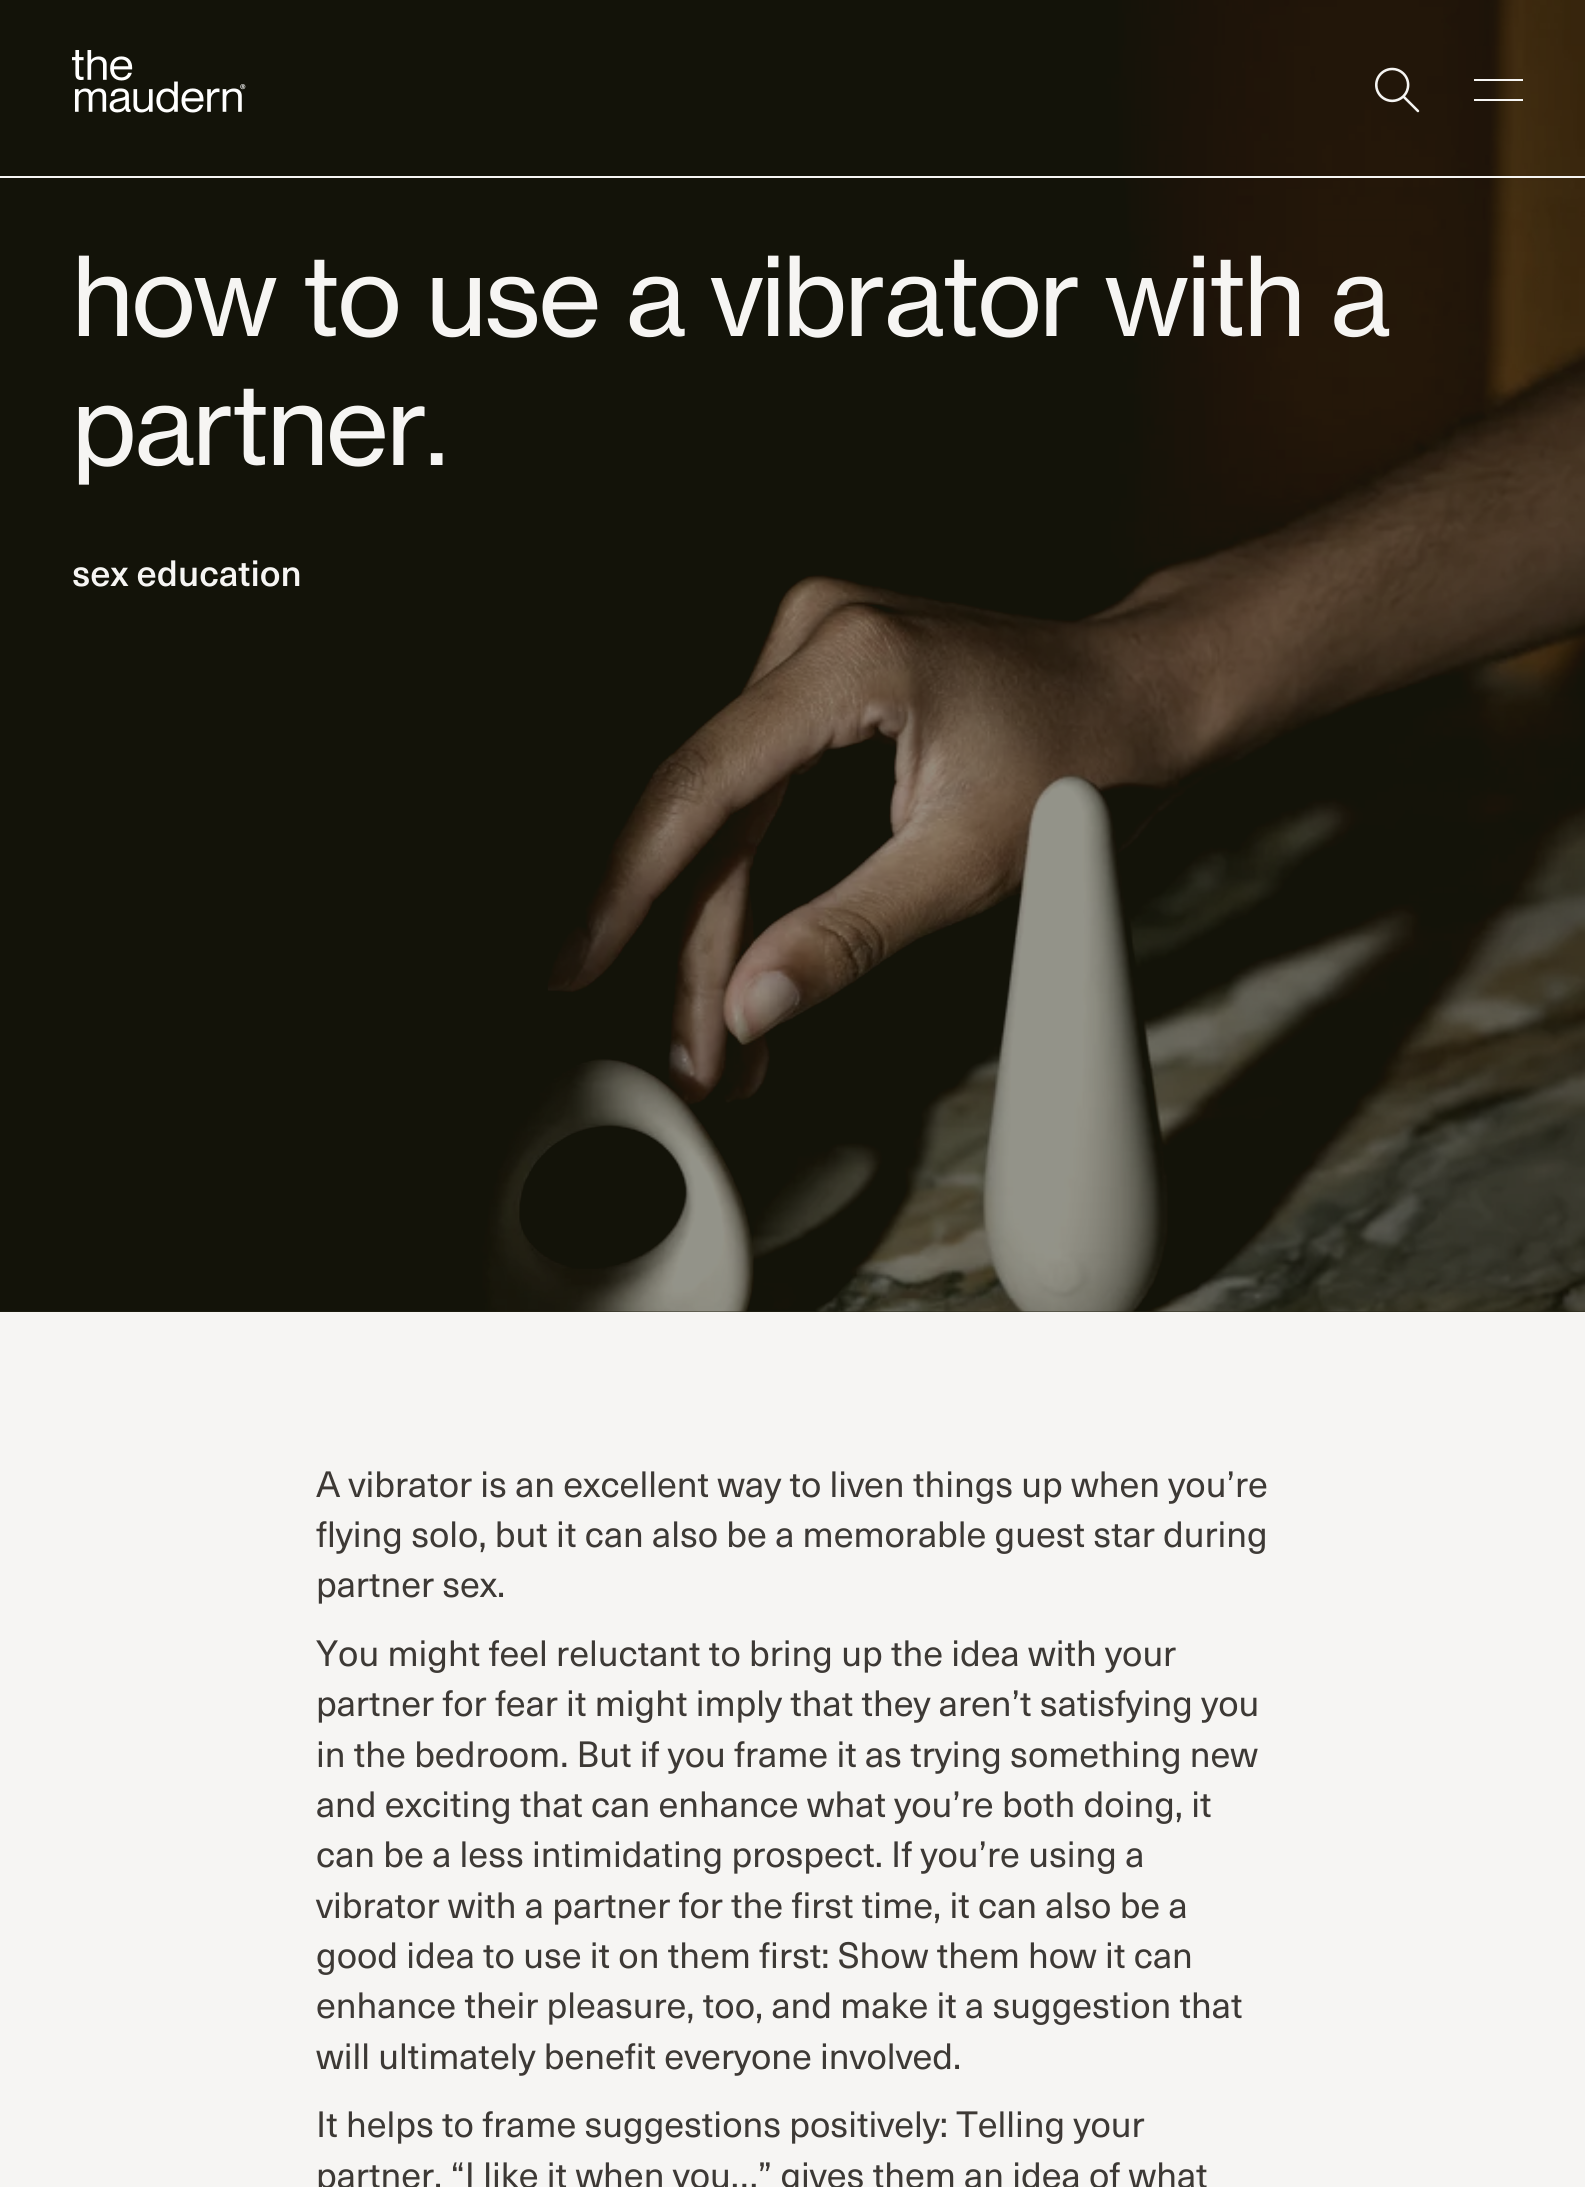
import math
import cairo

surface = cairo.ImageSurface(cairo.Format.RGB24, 1585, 2187)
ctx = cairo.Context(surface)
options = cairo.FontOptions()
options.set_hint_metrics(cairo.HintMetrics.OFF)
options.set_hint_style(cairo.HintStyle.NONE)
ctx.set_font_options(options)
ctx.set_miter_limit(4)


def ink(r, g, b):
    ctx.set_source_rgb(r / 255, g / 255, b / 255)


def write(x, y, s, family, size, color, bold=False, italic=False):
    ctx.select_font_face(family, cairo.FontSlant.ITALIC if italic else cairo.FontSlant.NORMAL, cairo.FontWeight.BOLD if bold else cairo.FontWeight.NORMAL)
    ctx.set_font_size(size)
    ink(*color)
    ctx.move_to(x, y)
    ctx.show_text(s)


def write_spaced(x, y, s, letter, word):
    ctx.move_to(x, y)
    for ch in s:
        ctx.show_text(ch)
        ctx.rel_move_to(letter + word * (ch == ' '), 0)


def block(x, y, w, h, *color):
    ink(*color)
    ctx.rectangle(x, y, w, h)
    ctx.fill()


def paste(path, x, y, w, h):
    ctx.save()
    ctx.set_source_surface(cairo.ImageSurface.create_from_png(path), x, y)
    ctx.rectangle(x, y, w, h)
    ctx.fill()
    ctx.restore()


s1 = dict(family="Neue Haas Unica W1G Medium", size=36, color=(246, 245, 243))
s2 = dict(family="Neue Haas Unica W1G", size=36, color=(61, 57, 53))

ink(246, 245, 243)
ctx.paint()
block(0, 0, 1585, 1312, 38, 38, 19)
paste("pic3.png", 0, 0, 1585, 1312)
paste("pic1.png", 72, 50, 174, 63)
paste("pic2.png", 1375, 67, 45, 46)
block(1474, 79, 49, 2, 246, 245, 243)
block(1474, 99, 49, 2, 246, 245, 243)
block(0, 176, 1585, 2, 246, 245, 243)
ctx.select_font_face("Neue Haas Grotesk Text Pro")
ctx.set_font_size(108)
write_spaced(72, 336, "how to use a vibrator with a", -2.25, 0)
write_spaced(72, 465, "partner.", -2.25, 0)
write(72, 586, "sex education", **s1)
write(316, 1497, "A vibrator is an excellent way to liven things up when you’re", **s2)
write(316, 1547, "flying solo, but it can also be a memorable guest star during", **s2)
write(316, 1597, "partner sex.", **s2)
write(316, 1666, "You might feel reluctant to bring up the idea with your", **s2)
write(316, 1716, "partner for fear it might imply that they aren’t satisfying you", **s2)
write(316, 1767, "in the bedroom. But if you frame it as trying something new", **s2)
write(316, 1817, "and exciting that can enhance what you’re both doing, it", **s2)
write(316, 1867, "can be a less intimidating prospect. If you’re using a", **s2)
write(316, 1918, "vibrator with a partner for the first time, it can also be a", **s2)
write(316, 1968, "good idea to use it on them first: Show them how it can", **s2)
write(316, 2018, "enhance their pleasure, too, and make it a suggestion that", **s2)
write(316, 2069, "will ultimately benefit everyone involved.", **s2)
write(316, 2137, "It helps to frame suggestions positively: Telling your", **s2)
write(316, 2188, "partner, “I like it when you…” gives them an idea of what", **s2)
surface.write_to_png("screenshot.png")
